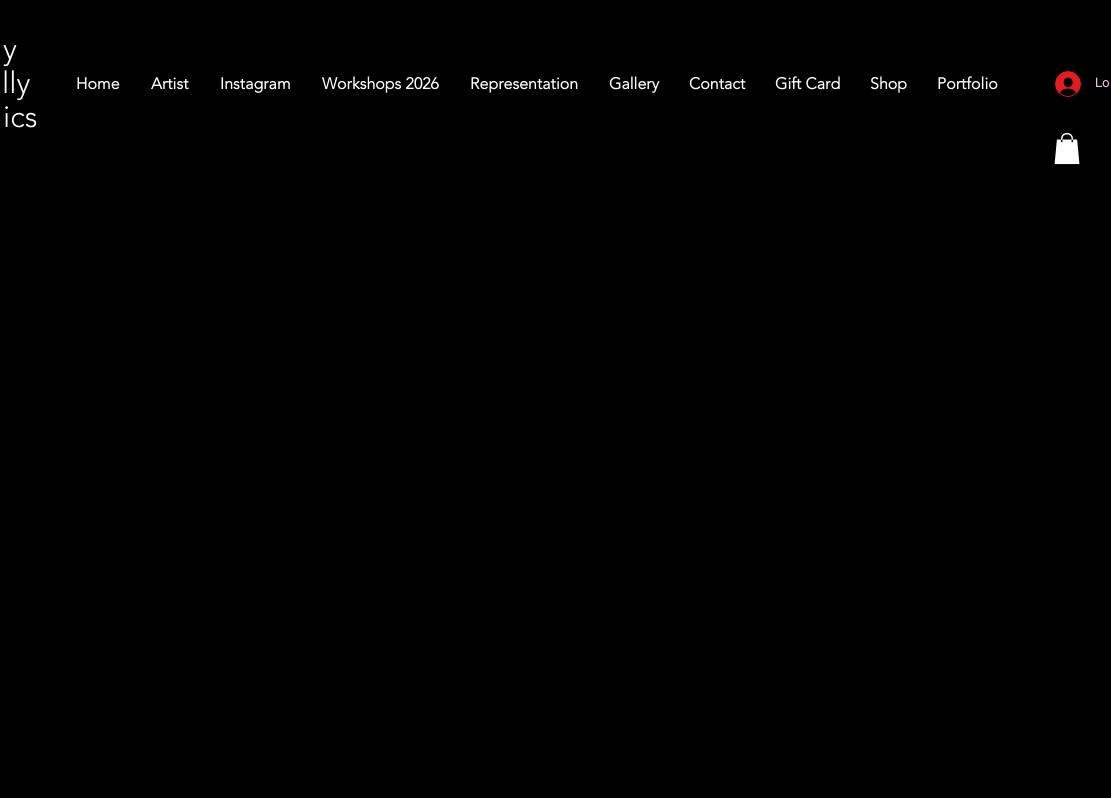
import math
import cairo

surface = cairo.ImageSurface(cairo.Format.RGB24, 1111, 798)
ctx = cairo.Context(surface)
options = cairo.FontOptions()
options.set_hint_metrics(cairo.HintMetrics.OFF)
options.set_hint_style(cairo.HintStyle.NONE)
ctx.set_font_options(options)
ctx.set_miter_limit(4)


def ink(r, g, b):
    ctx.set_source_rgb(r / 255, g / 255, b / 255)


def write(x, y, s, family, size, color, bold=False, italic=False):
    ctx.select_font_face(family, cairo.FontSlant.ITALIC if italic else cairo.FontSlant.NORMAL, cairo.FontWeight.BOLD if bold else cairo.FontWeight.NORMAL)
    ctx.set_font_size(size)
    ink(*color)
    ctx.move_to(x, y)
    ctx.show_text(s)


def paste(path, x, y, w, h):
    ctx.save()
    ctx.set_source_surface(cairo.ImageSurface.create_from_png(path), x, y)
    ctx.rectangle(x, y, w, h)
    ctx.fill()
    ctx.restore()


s1 = dict(family="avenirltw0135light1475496 Light", size=30, color=(255, 255, 255))
s2 = dict(family="avenirltw0135light1475496", size=16, color=(255, 255, 255), bold=True)
s3 = dict(family="helvetica", size=13, color=(230, 199, 235))

ink(0, 0, 0)
ctx.paint()
write(3, 59, "y", **s1)
write(2, 93, "lly", **s1)
write(3, 127, "ics", **s1)
write(76, 89, "Home", **s2)
write(151, 89, "Artist", **s2)
write(220, 89, "Instagram", **s2)
write(322, 89, "Workshops 2026", **s2)
write(470, 89, "Representation", **s2)
write(609, 89, "Gallery", **s2)
write(689, 89, "Contact", **s2)
write(775, 89, "Gift Card", **s2)
write(870, 89, "Shop", **s2)
write(937, 89, "Portfolio", **s2)
paste("pic1.png", 1055, 71, 26, 26)
write(1095, 87, "Lo", **s3)
paste("pic2.png", 1054, 133, 26, 32)
surface.write_to_png("screenshot.png")
